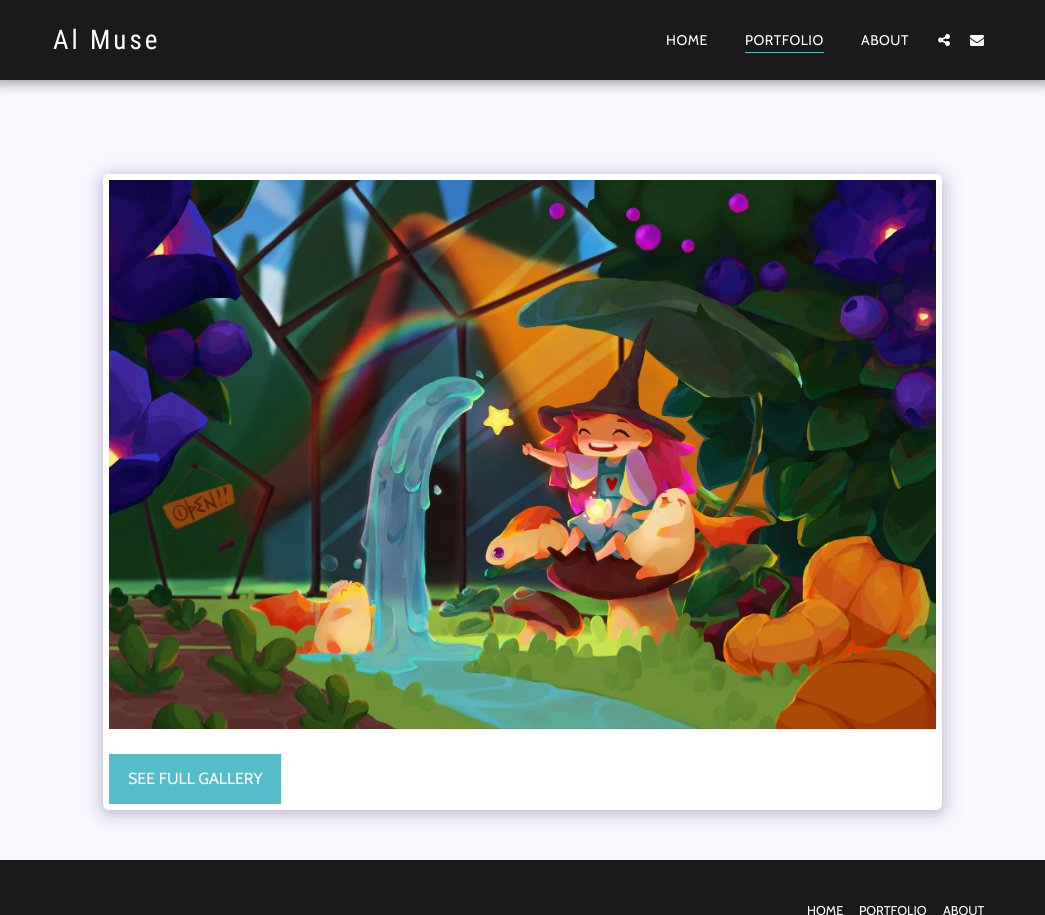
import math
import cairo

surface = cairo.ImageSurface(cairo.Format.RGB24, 1045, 915)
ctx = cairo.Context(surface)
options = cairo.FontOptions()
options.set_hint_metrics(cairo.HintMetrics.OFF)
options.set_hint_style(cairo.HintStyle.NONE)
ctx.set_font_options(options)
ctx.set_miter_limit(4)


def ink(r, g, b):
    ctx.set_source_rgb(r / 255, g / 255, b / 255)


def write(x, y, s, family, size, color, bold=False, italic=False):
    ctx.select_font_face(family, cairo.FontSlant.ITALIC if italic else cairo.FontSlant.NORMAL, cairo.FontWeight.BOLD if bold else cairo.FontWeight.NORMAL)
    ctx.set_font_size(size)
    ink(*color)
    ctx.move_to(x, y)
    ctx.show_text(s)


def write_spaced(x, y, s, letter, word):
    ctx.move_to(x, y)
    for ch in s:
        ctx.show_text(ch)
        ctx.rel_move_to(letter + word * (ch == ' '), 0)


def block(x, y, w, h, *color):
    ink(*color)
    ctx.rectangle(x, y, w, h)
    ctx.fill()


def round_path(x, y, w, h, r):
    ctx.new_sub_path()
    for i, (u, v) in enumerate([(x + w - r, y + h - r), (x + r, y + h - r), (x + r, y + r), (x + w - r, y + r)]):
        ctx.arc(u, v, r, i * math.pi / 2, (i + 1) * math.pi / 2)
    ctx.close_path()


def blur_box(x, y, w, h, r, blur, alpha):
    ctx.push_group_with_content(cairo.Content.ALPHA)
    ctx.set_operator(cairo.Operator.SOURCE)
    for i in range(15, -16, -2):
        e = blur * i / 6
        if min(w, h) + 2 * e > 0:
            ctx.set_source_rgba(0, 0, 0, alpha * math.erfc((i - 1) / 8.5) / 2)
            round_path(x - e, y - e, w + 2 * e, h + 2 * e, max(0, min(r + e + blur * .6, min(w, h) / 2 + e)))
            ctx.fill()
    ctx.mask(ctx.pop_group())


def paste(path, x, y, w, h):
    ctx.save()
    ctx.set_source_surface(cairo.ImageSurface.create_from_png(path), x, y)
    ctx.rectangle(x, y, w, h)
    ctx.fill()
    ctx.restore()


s1 = dict(family="Cabin", size=16, color=(255, 255, 255))
s2 = dict(family="Cabin", size=12.75, color=(255, 255, 255))

ink(248, 248, 255)
ctx.paint()
ink(0, 0, 0)
blur_box(-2, 0, 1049, 84, 0, 6, 0.35)
block(0, 0, 1045, 80, 27, 25, 25)
ctx.select_font_face("Roboto Condensed")
ctx.set_font_size(27)
ink(255, 255, 255)
write_spaced(53, 49, "Al Muse", 3, 0)
ctx.select_font_face("Cabin")
ctx.set_font_size(14)
write_spaced(666, 45, "HOME", 0.5, 0)
write_spaced(745, 45, "PORTFOLIO", 0.5, 0)
block(745, 52, 79, 1, 85, 189, 202)
ink(255, 255, 255)
write_spaced(861, 45, "ABOUT", 0.5, 0)
paste("pic1.png", 938, 34, 12, 12)
paste("pic2.png", 970, 35, 14, 11)
ink(77, 63, 122)
blur_box(103, 177, 839, 636, 6, 10, 0.4)
ink(255, 255, 255)
round_path(103, 174, 839, 636, 6)
ctx.fill()
paste("pic3.png", 109, 180, 827, 549)
block(109, 754, 172, 50, 85, 189, 202)
write(128, 784, "SEE FULL GALLERY", **s1)
block(0, 860, 1045, 55, 27, 25, 25)
write(807, 915, "HOME", **s2)
write(859, 915, "PORTFOLIO", **s2)
write(943, 915, "ABOUT", **s2)
surface.write_to_png("screenshot.png")
